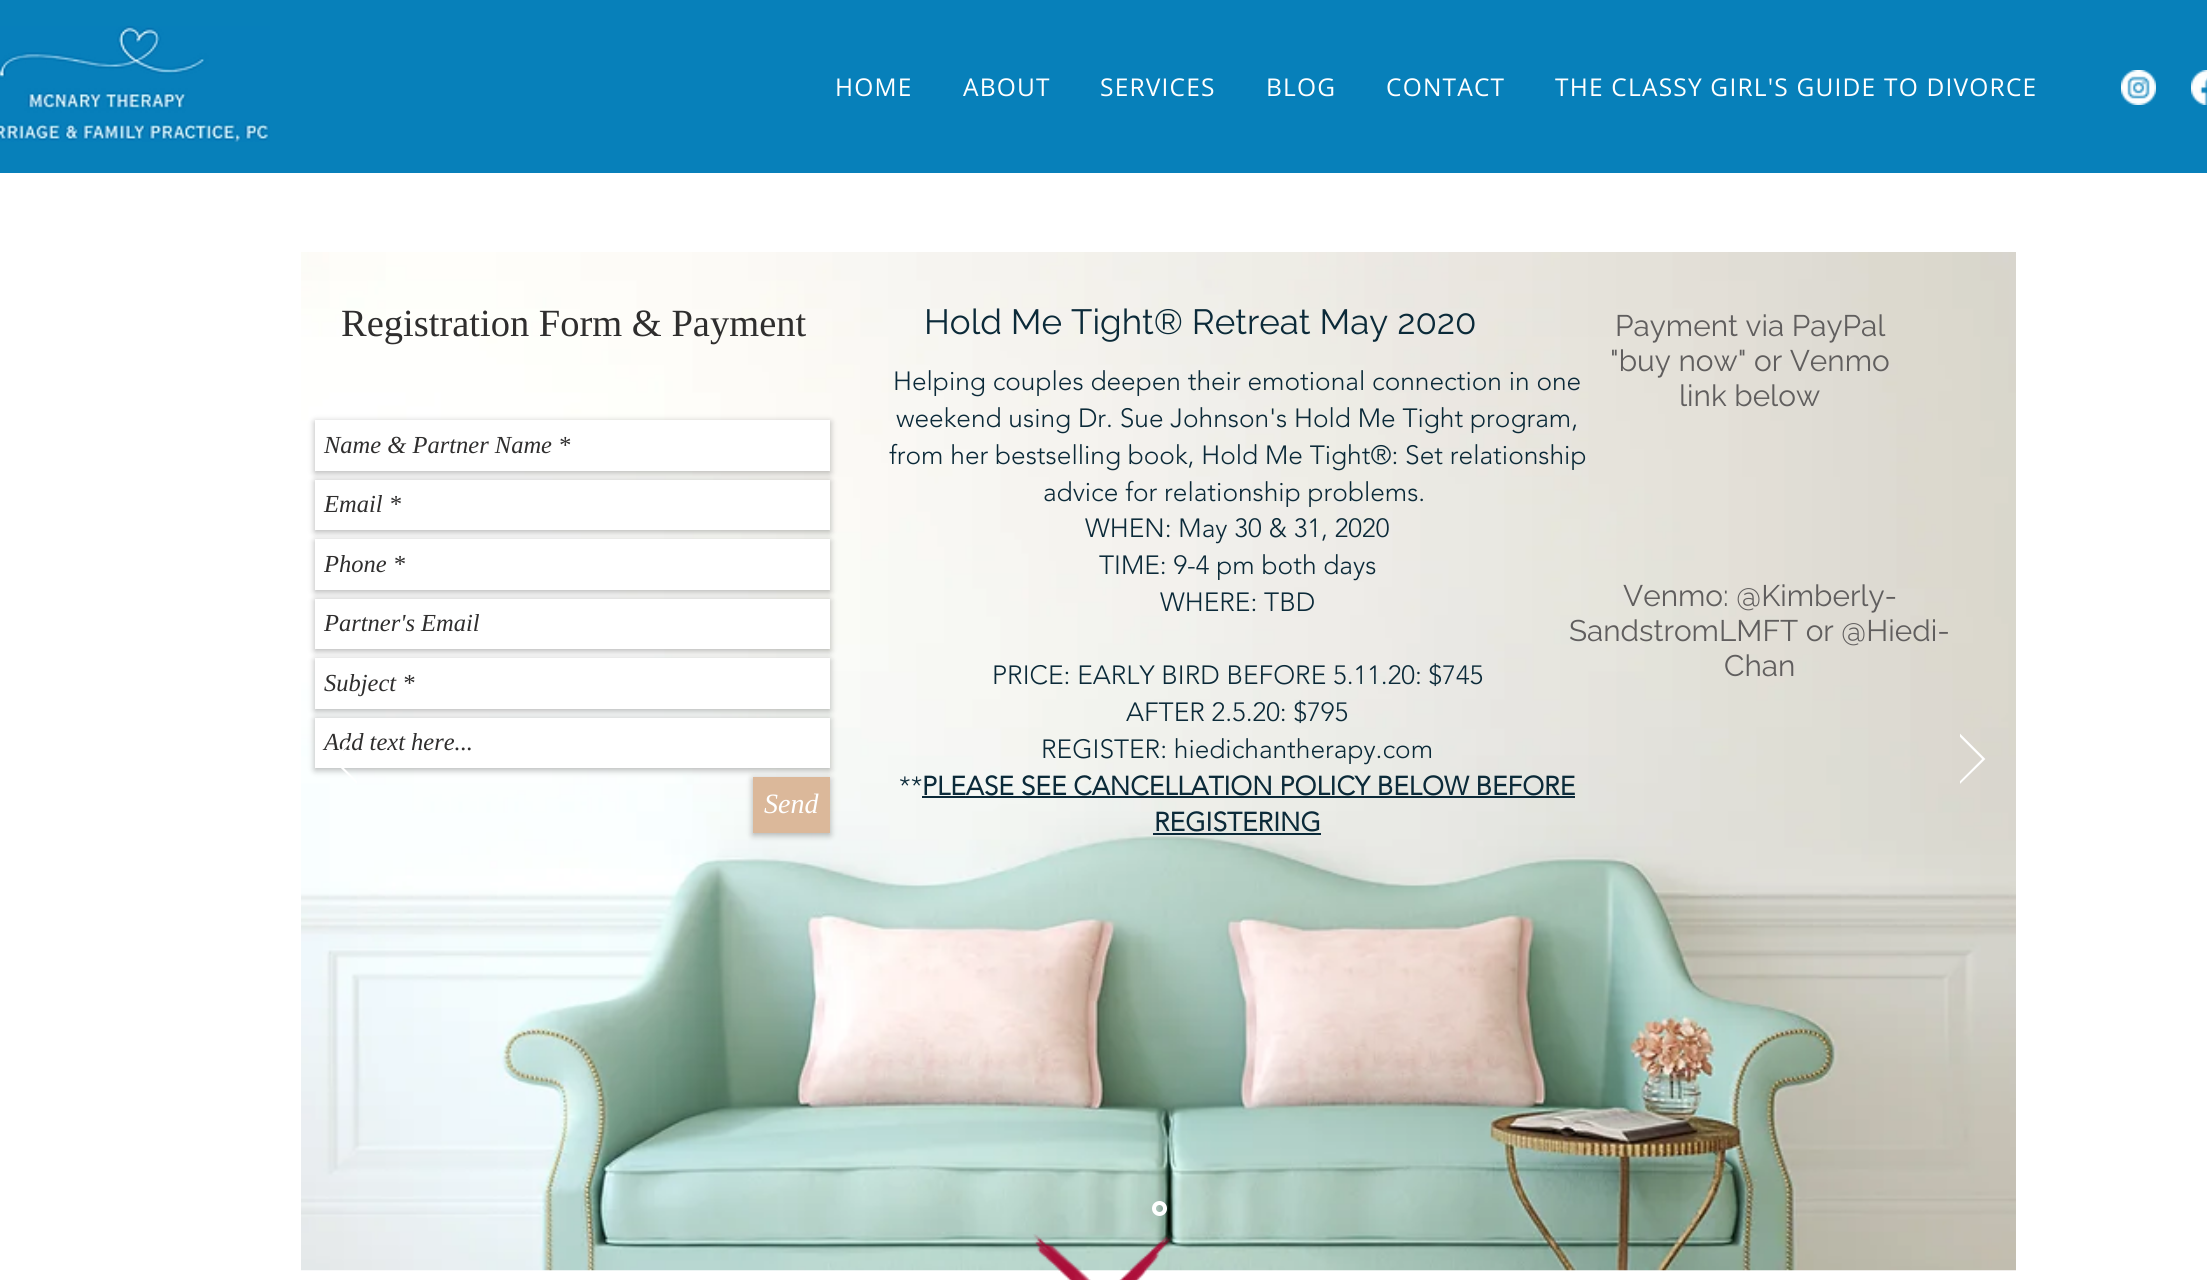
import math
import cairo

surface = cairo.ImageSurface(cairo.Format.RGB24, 2207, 1280)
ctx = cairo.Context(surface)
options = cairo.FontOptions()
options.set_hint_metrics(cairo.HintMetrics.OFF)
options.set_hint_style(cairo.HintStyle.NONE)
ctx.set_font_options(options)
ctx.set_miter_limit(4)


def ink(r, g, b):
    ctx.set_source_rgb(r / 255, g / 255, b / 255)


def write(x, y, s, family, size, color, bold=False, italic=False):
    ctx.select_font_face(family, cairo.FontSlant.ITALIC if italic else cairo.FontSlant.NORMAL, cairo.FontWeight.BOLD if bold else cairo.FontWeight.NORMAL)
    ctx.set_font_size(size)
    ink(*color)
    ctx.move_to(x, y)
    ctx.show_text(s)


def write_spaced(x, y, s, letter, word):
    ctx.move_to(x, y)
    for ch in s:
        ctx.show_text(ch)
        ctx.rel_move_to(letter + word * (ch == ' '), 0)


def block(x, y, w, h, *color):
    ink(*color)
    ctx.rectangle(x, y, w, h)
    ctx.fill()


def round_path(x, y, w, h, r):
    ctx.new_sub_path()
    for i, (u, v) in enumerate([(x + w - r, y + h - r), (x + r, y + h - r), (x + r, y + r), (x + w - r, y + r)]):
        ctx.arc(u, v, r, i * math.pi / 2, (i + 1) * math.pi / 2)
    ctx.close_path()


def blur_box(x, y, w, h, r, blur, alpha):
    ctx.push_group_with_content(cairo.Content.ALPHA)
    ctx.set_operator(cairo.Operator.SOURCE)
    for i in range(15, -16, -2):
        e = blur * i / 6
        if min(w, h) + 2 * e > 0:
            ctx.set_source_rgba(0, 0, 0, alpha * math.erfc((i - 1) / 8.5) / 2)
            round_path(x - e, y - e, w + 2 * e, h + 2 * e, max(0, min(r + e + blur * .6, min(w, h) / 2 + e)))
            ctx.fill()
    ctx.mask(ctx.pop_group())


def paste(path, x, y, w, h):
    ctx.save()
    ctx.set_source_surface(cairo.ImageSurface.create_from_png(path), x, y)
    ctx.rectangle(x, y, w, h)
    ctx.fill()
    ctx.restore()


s1 = dict(family="Liberation Serif", size=38.5, color=(47, 46, 46))
s2 = dict(family="Raleway", size=35, color=(11, 42, 57))
s3 = dict(family="Raleway", size=29.75, color=(96, 94, 94))
s4 = dict(family="Liberation Serif", size=24.5, color=(47, 46, 46), italic=True)
s5 = dict(family="Liberation Serif", size=28, color=(255, 255, 255), italic=True)
s6 = dict(family="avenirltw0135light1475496 Light", size=26.25, color=(11, 42, 57))
s7 = dict(family="avenirltw0135light1475496", size=26.25, color=(11, 42, 57), bold=True)

ink(255, 255, 255)
ctx.paint()
block(0, 0, 2207, 173, 7, 128, 186)
paste("pic1.png", 0, 26, 270, 116)
ctx.select_font_face("Open Sans")
ctx.set_font_size(24.5)
ink(255, 255, 255)
write_spaced(835, 96, "HOME", 1.2, 0)
write_spaced(963, 96, "ABOUT", 1.2, 0)
write_spaced(1100, 96, "SERVICES", 1.2, 0)
write_spaced(1266, 96, "BLOG", 1.2, 0)
write_spaced(1386, 96, "CONTACT", 1.2, 0)
write_spaced(1555, 96, "THE CLASSY GIRL'S GUIDE TO DIVORCE", 1.2, 0)
paste("pic2.png", 2121, 70, 35, 35)
paste("pic3.png", 2191, 70, 16, 35)
paste("pic4.png", 301, 252, 1715, 1019)
write(341, 336, "Registration Form & Payment", **s1)
write(924, 334, "Hold Me Tight® Retreat May 2020", **s2)
write(1615, 336, "Payment via PayPal", **s3)
write(1610, 371, "\"buy now\" or Venmo", **s3)
write(1679, 406, "link below", **s3)
ink(0, 0, 0)
blur_box(315, 422, 515, 51, 0, 3.5, 0.3)
block(315, 420, 515, 51, 255, 255, 255)
write(324, 453, "Name & Partner Name *", **s4)
ink(0, 0, 0)
blur_box(315, 481, 515, 51, 0, 3.5, 0.3)
block(315, 480, 515, 50, 255, 255, 255)
write(324, 512, "Email *", **s4)
ink(0, 0, 0)
blur_box(315, 541, 515, 51, 0, 3.5, 0.3)
block(315, 539, 515, 51, 255, 255, 255)
write(324, 572, "Phone *", **s4)
ink(0, 0, 0)
blur_box(315, 600, 515, 51, 0, 3.5, 0.3)
block(315, 599, 515, 50, 255, 255, 255)
write(324, 631, "Partner's Email", **s4)
ink(0, 0, 0)
blur_box(315, 660, 515, 51, 0, 3.5, 0.3)
block(315, 658, 515, 51, 255, 255, 255)
write(324, 691, "Subject *", **s4)
ink(0, 0, 0)
blur_box(315, 719, 515, 51, 0, 3.5, 0.3)
block(315, 718, 515, 50, 255, 255, 255)
write(324, 750, "Add text here...", **s4)
ink(0, 0, 0)
blur_box(753, 779, 77, 56, 0, 3.5, 0.3)
block(753, 777, 77, 56, 219, 184, 154)
write(764, 813, "Send", **s5)
write(893, 390, "Helping couples deepen their emotional connection in one", **s6)
write(896, 427, "weekend using Dr. Sue Johnson's Hold Me Tight program,", **s6)
write(889, 464, "from her bestselling book, Hold Me Tight®: Set relationship", **s6)
write(1043, 501, "advice for relationship problems.", **s6)
write(1085, 537, "WHEN: May 30 & 31, 2020", **s6)
write(1099, 574, "TIME: 9-4 pm both days", **s6)
write(1160, 611, "WHERE: TBD", **s6)
write(992, 684, "PRICE: EARLY BIRD BEFORE 5.11.20: $745", **s6)
write(1126, 721, "AFTER 2.5.20: $795", **s6)
write(1041, 758, "REGISTER: hiedichantherapy.com", **s6)
write(899, 795, "**", **s6)
write(922, 795, "PLEASE SEE CANCELLATION POLICY BELOW BEFORE", **s7)
block(922, 796, 653, 2, 11, 42, 57)
write(1154, 831, "REGISTERING", **s7)
block(1153, 833, 168, 2, 11, 42, 57)
write(1623, 606, "Venmo: @Kimberly-", **s3)
write(1569, 641, "SandstromLMFT or @Hiedi-", **s3)
write(1724, 676, "Chan", **s3)
ctx.save()
ctx.rectangle(333, 733, 24, 51)
ctx.clip()
ctx.new_path()
ctx.move_to(358, 784)
ctx.line_to(332.5, 759)
ctx.line_to(358, 733.5)
ctx.line_to(358.5, 734.5)
ctx.line_to(334, 759)
ctx.line_to(358.5, 783.5)
ctx.close_path()
ink(255, 255, 255)
ctx.set_line_width(1.2)
ctx.stroke()
ctx.restore()
ctx.save()
ctx.rectangle(1960, 733, 26, 51)
ctx.clip()
ctx.new_path()
ctx.move_to(1959, 784)
ctx.line_to(1984.5, 759)
ctx.line_to(1959, 733.5)
ctx.line_to(1958.5, 734.5)
ctx.line_to(1983, 759)
ctx.line_to(1958.5, 783.5)
ctx.close_path()
ink(255, 255, 255)
ctx.set_line_width(1.2)
ctx.stroke()
ctx.restore()
ctx.arc(1159.5, 1208.5, 5.5, 0, 2 * math.pi)
ink(255, 255, 255)
ctx.set_line_width(4)
ctx.stroke()
paste("pic5.png", 1033, 1234, 139, 46)
surface.write_to_png("screenshot.png")
